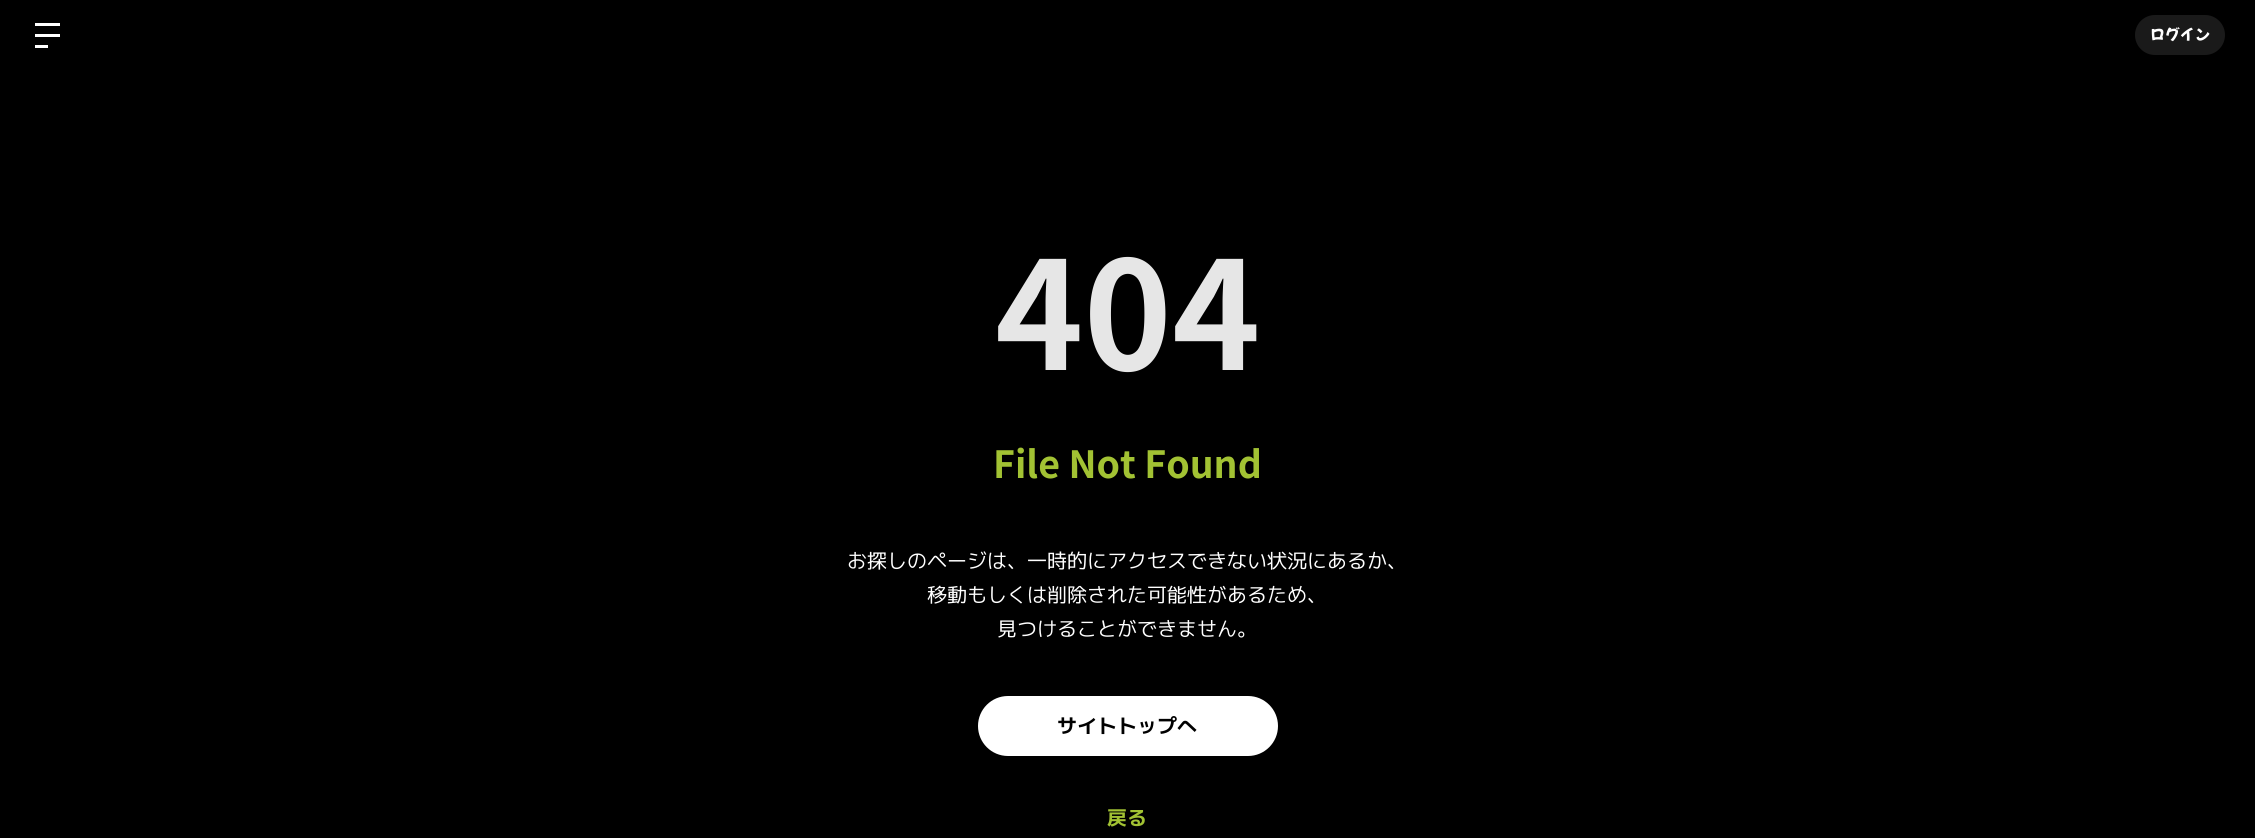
import math
import cairo

surface = cairo.ImageSurface(cairo.Format.RGB24, 2255, 838)
ctx = cairo.Context(surface)
options = cairo.FontOptions()
options.set_hint_metrics(cairo.HintMetrics.OFF)
options.set_hint_style(cairo.HintStyle.NONE)
ctx.set_font_options(options)
ctx.set_miter_limit(4)


def ink(r, g, b):
    ctx.set_source_rgb(r / 255, g / 255, b / 255)


def write(x, y, s, family, size, color, bold=False, italic=False):
    ctx.select_font_face(family, cairo.FontSlant.ITALIC if italic else cairo.FontSlant.NORMAL, cairo.FontWeight.BOLD if bold else cairo.FontWeight.NORMAL)
    ctx.set_font_size(size)
    ink(*color)
    ctx.move_to(x, y)
    ctx.show_text(s)


def block(x, y, w, h, *color):
    ink(*color)
    ctx.rectangle(x, y, w, h)
    ctx.fill()


def round_path(x, y, w, h, r):
    ctx.new_sub_path()
    for i, (u, v) in enumerate([(x + w - r, y + h - r), (x + r, y + h - r), (x + r, y + r), (x + w - r, y + r)]):
        ctx.arc(u, v, r, i * math.pi / 2, (i + 1) * math.pi / 2)
    ctx.close_path()


s1 = dict(family="Mochiy Pop One", size=15, color=(255, 255, 255))
s2 = dict(family="Noto Sans JP", size=150, color=(230, 230, 230), bold=True)
s3 = dict(family="Noto Sans JP", size=37.5, color=(162, 194, 51), bold=True)
s4 = dict(family="M PLUS 1p", size=20, color=(255, 255, 255))
s5 = dict(family="M PLUS 1p", size=20, color=(0, 0, 0), bold=True)
s6 = dict(family="M PLUS 1p", size=20, color=(162, 194, 51), bold=True)

ink(0, 0, 0)
ctx.paint()
block(35, 23, 25, 3, 255, 255, 255)
block(35, 34, 25, 3, 255, 255, 255)
block(35, 45, 13, 3, 255, 255, 255)
ink(26, 26, 26)
round_path(2135, 15, 90, 40, 20)
ctx.fill()
write(2150, 40, "ログイン", **s1)
write(995, 370, "404", **s2)
write(993, 478, "File Not Found", **s3)
write(847, 568, "お探しのページは、一時的にアクセスできない状況にあるか、", **s4)
write(927, 602, "移動もしくは削除された可能性があるため、", **s4)
write(997, 636, "見つけることができません。", **s4)
round_path(978, 696, 300, 60, 30)
ctx.fill()
write(1057, 733, "サイトトップへ", **s5)
write(1107, 825, "戻る", **s6)
surface.write_to_png("screenshot.png")
